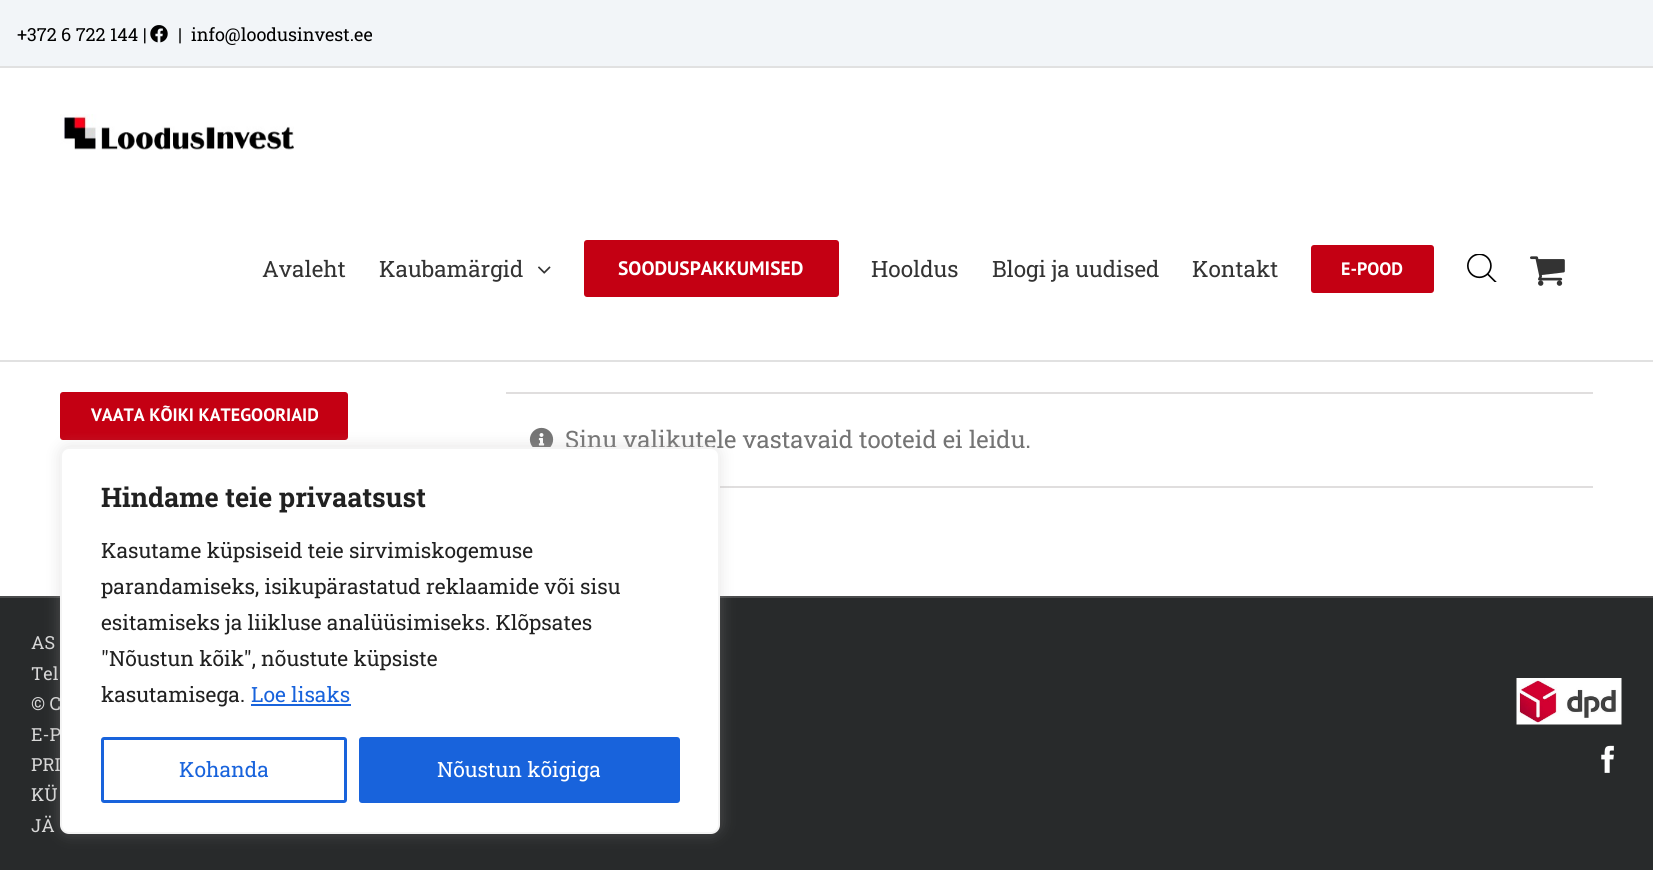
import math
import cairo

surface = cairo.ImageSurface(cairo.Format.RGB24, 1653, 894)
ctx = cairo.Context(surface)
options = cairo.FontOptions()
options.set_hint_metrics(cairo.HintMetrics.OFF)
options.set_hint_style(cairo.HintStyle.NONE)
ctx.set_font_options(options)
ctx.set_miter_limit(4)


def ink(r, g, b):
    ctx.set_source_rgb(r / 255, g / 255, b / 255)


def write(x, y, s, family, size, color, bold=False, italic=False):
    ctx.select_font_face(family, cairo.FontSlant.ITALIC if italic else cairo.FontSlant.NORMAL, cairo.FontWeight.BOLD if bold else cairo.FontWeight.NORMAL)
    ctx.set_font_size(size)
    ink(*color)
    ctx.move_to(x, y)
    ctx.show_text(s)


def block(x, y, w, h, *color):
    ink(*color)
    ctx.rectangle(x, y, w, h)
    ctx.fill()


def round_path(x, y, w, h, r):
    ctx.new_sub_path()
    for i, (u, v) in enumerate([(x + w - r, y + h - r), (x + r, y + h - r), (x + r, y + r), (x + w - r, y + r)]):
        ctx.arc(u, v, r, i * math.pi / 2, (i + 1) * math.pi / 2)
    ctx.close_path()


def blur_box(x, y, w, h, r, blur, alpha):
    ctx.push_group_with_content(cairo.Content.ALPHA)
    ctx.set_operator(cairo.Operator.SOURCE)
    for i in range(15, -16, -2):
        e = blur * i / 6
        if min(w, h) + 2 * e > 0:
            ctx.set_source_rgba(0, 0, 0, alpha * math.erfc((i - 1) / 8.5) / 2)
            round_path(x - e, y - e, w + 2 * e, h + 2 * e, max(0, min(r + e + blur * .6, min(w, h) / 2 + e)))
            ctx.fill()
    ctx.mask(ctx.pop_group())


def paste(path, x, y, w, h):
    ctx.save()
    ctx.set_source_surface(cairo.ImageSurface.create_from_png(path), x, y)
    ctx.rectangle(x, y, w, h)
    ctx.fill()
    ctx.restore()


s1 = dict(family="Roboto Slab", size=18, color=(0, 0, 0))
s2 = dict(family="Roboto Slab", size=22.5, color=(51, 51, 51))
s3 = dict(family="PT Sans", size=19.5, color=(255, 255, 255), bold=True)
s4 = dict(family="PT Sans", size=18, color=(255, 255, 255), bold=True)
s5 = dict(family="Roboto Slab", size=24, color=(116, 116, 116))
s6 = dict(family="Roboto Slab", size=18, color=(216, 216, 216))
s7 = dict(family="Roboto Slab", size=27, color=(33, 33, 33), bold=True)
s8 = dict(family="Roboto Slab", size=21, color=(33, 33, 33))
s9 = dict(family="Roboto Slab", size=21, color=(24, 99, 220))
s10 = dict(family="Roboto Slab", size=21, color=(255, 255, 255))

ink(255, 255, 255)
ctx.paint()
block(0, 0, 1653, 66, 242, 245, 248)
block(0, 66, 1653, 2, 225, 225, 225)
write(17, 41, "+372 6 722 144 |", **s1)
paste("pic1.png", 150, 25, 18, 18)
write(178, 41, "|", **s1)
write(191, 41, "info@loodusinvest.ee", **s1)
block(0, 360, 1653, 2, 225, 225, 225)
paste("pic2.png", 60, 114, 234, 36)
write(262, 277, "Avaleht", **s2)
write(379, 277, "Kaubamärgid", **s2)
paste("pic3.png", 538, 266, 13, 8)
ink(196, 0, 19)
round_path(584, 240, 255, 57, 3)
ctx.fill()
write(618, 275, "SOODUSPAKKUMISED", **s3)
write(871, 277, "Hooldus", **s2)
write(992, 277, "Blogi ja uudised", **s2)
write(1192, 277, "Kontakt", **s2)
ink(196, 0, 19)
round_path(1311, 245, 123, 48, 3)
ctx.fill()
write(1341, 275, "E-POOD", **s4)
paste("pic4.png", 1467, 254, 30, 28)
paste("pic5.png", 1530, 256, 35, 30)
ink(196, 0, 19)
round_path(60, 392, 288, 48, 3)
ctx.fill()
write(91, 421, "VAATA KÕIKI KATEGOORIAID", **s4)
block(506, 392, 1087, 2, 224, 222, 222)
block(720, 486, 873, 2, 224, 222, 222)
paste("pic6.png", 529, 427, 25, 20)
write(565, 448, "Sinu valikutele vastavaid tooteid ei leidu.", **s5)
block(0, 598, 1653, 272, 40, 42, 43)
block(0, 596, 1653, 2, 75, 76, 77)
write(31, 649, "AS", **s6)
write(31, 680, "Tel", **s6)
write(31, 710, "© C", **s6)
write(31, 741, "E-P", **s6)
write(31, 771, "PRI", **s6)
write(31, 801, "KÜ", **s6)
write(31, 832, "JÄ", **s6)
paste("pic7.png", 1516, 678, 106, 47)
paste("pic8.png", 1601, 745, 13, 28)
ink(172, 171, 171)
blur_box(60, 446, 660, 387, 9, 7.5, 0.3)
ink(255, 255, 255)
round_path(61, 448, 658, 385, 8)
ctx.fill_preserve()
ink(244, 244, 244)
ctx.stroke()
write(101, 507, "Hindame teie privaatsust", **s7)
write(101, 558, "Kasutame küpsiseid teie sirvimiskogemuse", **s8)
write(101, 594, "parandamiseks, isikupärastatud reklaamide või sisu", **s8)
write(101, 630, "esitamiseks ja liikluse analüüsimiseks. Klõpsates", **s8)
write(101, 666, "\"Nõustun kõik\", nõustute küpsiste", **s8)
write(101, 702, "kasutamisega.", **s8)
write(251, 702, "Loe lisaks", **s9)
block(251, 704, 100, 2, 24, 99, 220)
round_path(102.5, 738.5, 243, 63, 1.5)
ctx.set_line_width(3)
ctx.stroke()
write(179, 777, "Kohanda", **s9)
round_path(360.5, 738.5, 318, 63, 1.5)
ctx.fill_preserve()
ctx.stroke()
write(437, 777, "Nõustun kõigiga", **s10)
surface.write_to_png("screenshot.png")
